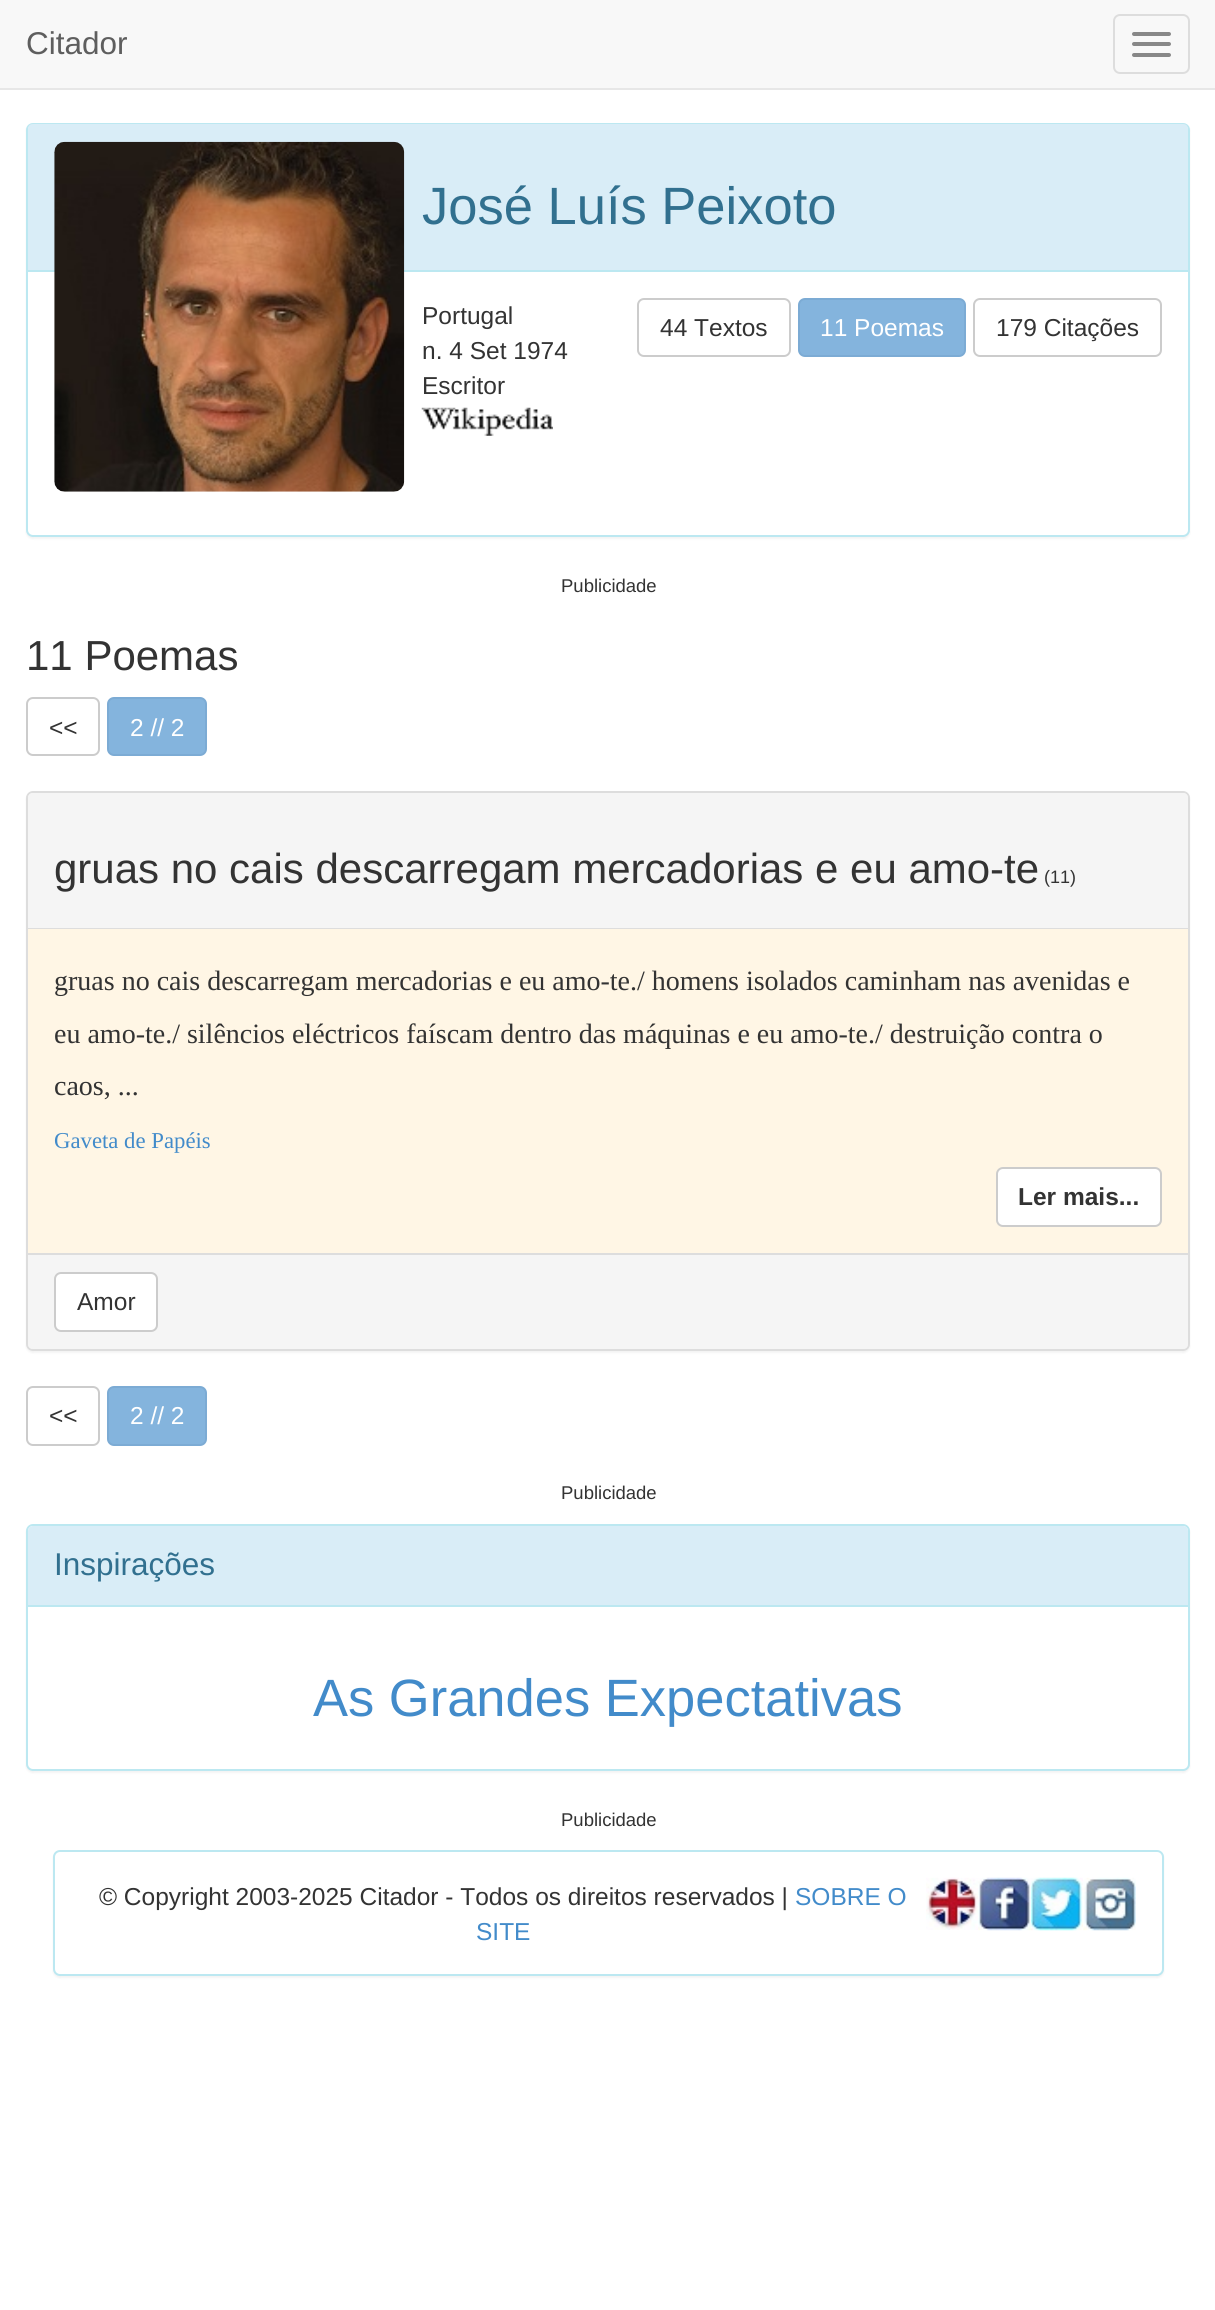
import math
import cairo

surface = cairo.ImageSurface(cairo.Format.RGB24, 1215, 2310)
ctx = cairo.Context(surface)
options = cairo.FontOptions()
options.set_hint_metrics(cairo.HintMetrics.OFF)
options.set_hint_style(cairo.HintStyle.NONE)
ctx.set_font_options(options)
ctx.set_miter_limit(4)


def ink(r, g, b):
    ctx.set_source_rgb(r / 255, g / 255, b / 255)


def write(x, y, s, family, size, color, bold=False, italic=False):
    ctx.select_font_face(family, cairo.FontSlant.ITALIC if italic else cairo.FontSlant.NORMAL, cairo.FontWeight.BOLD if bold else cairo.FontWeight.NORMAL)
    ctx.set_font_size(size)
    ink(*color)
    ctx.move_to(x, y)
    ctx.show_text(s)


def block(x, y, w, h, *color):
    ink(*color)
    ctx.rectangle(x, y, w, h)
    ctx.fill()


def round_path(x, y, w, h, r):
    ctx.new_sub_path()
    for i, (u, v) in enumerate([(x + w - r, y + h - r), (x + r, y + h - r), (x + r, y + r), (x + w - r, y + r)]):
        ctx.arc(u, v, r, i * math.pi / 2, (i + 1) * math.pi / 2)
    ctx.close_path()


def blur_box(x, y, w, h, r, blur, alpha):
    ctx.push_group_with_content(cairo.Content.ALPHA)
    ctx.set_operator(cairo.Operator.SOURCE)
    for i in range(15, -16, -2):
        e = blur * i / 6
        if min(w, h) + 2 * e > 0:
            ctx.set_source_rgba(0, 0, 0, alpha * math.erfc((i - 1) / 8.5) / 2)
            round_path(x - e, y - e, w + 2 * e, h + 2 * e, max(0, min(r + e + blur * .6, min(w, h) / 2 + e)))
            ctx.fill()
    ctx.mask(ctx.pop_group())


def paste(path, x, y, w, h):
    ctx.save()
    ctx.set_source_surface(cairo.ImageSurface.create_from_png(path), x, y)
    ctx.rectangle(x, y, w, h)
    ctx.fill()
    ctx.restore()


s1 = dict(family="Liberation Sans", size=31.5, color=(94, 94, 94))
s2 = dict(family="Liberation Sans", size=52.5, color=(49, 112, 143))
s3 = dict(family="Liberation Sans", size=24.5, color=(51, 51, 51))
s4 = dict(family="Liberation Sans", size=24.5, color=(255, 255, 255))
s5 = dict(family="Liberation Sans", size=18.5, color=(51, 51, 51))
s6 = dict(family="Liberation Sans", size=42, color=(51, 51, 51))
s7 = dict(family="Liberation Sans", size=18, color=(51, 51, 51))
s8 = dict(family="Liberation Serif", size=28, color=(51, 51, 51))
s9 = dict(family="Liberation Serif", size=22.75, color=(66, 139, 202))
s10 = dict(family="Liberation Sans", size=24.5, color=(51, 51, 51), bold=True)
s11 = dict(family="Liberation Sans", size=31.5, color=(49, 112, 143))
s12 = dict(family="Liberation Sans", size=52.5, color=(66, 139, 202))
s13 = dict(family="Liberation Sans", size=24.5, color=(66, 139, 202))

ink(255, 255, 255)
ctx.paint()
block(0, 0, 1215, 88, 248, 248, 248)
block(0, 88, 1215, 2, 231, 231, 231)
write(26, 54, "Citador", **s1)
round_path(1114, 15, 75, 58, 6)
ink(221, 221, 221)
ctx.stroke()
ink(136, 136, 136)
round_path(1132, 32, 39, 4, 2)
ctx.fill()
round_path(1132, 42, 39, 4, 2)
ctx.fill()
round_path(1132, 53, 39, 4, 2)
ctx.fill()
ink(0, 0, 0)
blur_box(26, 124, 1164, 415, 7, 1, 0.05)
ink(255, 255, 255)
round_path(27, 124, 1162, 412, 6)
ctx.fill_preserve()
ink(188, 232, 241)
ctx.stroke()
ink(217, 237, 247)
ctx.new_path()
ctx.move_to(33, 124)
ctx.line_to(1183, 124)
ctx.curve_to(1186, 124, 1188, 126, 1188, 129)
ctx.line_to(1188, 271)
ctx.line_to(28, 271)
ctx.line_to(28, 129)
ctx.curve_to(28, 126, 30, 124, 33, 124)
ctx.close_path()
ctx.fill()
block(28, 270, 1160, 2, 188, 232, 241)
paste("pic1.png", 54, 141, 351, 351)
write(422, 224, "José Luís Peixoto", **s2)
write(422, 324, "Portugal", **s3)
write(422, 359, "n. 4 Set 1974", **s3)
write(422, 394, "Escritor", **s3)
paste("pic2.png", 421, 407, 132, 29)
round_path(638, 299, 152, 57, 6)
ink(204, 204, 204)
ctx.stroke()
write(660, 336, "44 Textos", **s3)
ink(132, 180, 221)
round_path(799, 299, 166, 57, 6)
ctx.fill_preserve()
ink(124, 171, 212)
ctx.stroke()
write(820, 336, "11 Poemas", **s4)
round_path(974, 299, 187, 57, 6)
ink(204, 204, 204)
ctx.stroke()
write(996, 336, "179 Citações", **s3)
write(561, 592, "Publicidade", **s5)
write(26, 670, "11 Poemas", **s6)
round_path(27, 698, 72, 57, 6)
ink(204, 204, 204)
ctx.stroke()
write(49, 736, "<<", **s3)
ink(132, 180, 221)
round_path(108, 698, 98, 57, 6)
ctx.fill_preserve()
ink(124, 171, 212)
ctx.stroke()
write(130, 736, "2 // 2", **s4)
ink(0, 0, 0)
blur_box(26, 793, 1164, 560, 7, 1, 0.05)
round_path(27, 792, 1162, 558, 6)
ink(221, 221, 221)
ctx.stroke()
ink(245, 245, 245)
ctx.new_path()
ctx.move_to(33, 793)
ctx.line_to(1183, 793)
ctx.curve_to(1186, 793, 1188, 795, 1188, 798)
ctx.line_to(1188, 929)
ctx.line_to(28, 929)
ctx.line_to(28, 798)
ctx.curve_to(28, 795, 30, 793, 33, 793)
ctx.close_path()
ctx.fill()
block(28, 928, 1160, 1, 221, 221, 221)
write(54, 883, "gruas no cais descarregam mercadorias e eu amo-te", **s6)
write(1044, 883, "(11)", **s7)
block(28, 929, 1160, 324, 255, 246, 229)
write(54, 990, "gruas no cais descarregam mercadorias e eu amo-te./ homens isolados caminham nas avenidas e", **s8)
write(54, 1043, "eu amo-te./ silêncios eléctricos faíscam dentro das máquinas e eu amo-te./ destruição contra o", **s8)
write(54, 1095, "caos, ...", **s8)
write(54, 1148, "Gaveta de Papéis", **s9)
ink(255, 255, 255)
round_path(997, 1168, 164, 58, 6)
ctx.fill_preserve()
ink(204, 204, 204)
ctx.stroke()
write(1018, 1205, "Ler mais...", **s10)
ink(245, 245, 245)
ctx.new_path()
ctx.move_to(28, 1253)
ctx.line_to(1188, 1253)
ctx.line_to(1188, 1344)
ctx.curve_to(1188, 1347, 1186, 1349, 1183, 1349)
ctx.line_to(33, 1349)
ctx.curve_to(30, 1349, 28, 1347, 28, 1344)
ctx.close_path()
ctx.fill()
block(28, 1253, 1160, 2, 221, 221, 221)
ink(255, 255, 255)
round_path(55, 1273, 102, 58, 6)
ctx.fill_preserve()
ink(204, 204, 204)
ctx.stroke()
write(77, 1310, "Amor", **s3)
round_path(27, 1387, 72, 58, 6)
ink(204, 204, 204)
ctx.stroke()
write(49, 1424, "<<", **s3)
ink(132, 180, 221)
round_path(108, 1387, 98, 58, 6)
ctx.fill_preserve()
ink(124, 171, 212)
ctx.stroke()
write(130, 1424, "2 // 2", **s4)
write(561, 1499, "Publicidade", **s5)
ink(0, 0, 0)
blur_box(26, 1526, 1164, 247, 7, 1, 0.05)
ink(255, 255, 255)
round_path(27, 1525, 1162, 245, 6)
ctx.fill_preserve()
ink(188, 232, 241)
ctx.stroke()
ink(217, 237, 247)
ctx.new_path()
ctx.move_to(33, 1526)
ctx.line_to(1183, 1526)
ctx.curve_to(1186, 1526, 1188, 1528, 1188, 1531)
ctx.line_to(1188, 1607)
ctx.line_to(28, 1607)
ctx.line_to(28, 1531)
ctx.curve_to(28, 1528, 30, 1526, 33, 1526)
ctx.close_path()
ctx.fill()
block(28, 1605, 1160, 2, 188, 232, 241)
write(54, 1575, "Inspirações", **s11)
write(313, 1716, "As Grandes Expectativas", **s12)
write(561, 1826, "Publicidade", **s5)
ink(0, 0, 0)
blur_box(53, 1852, 1111, 126, 7, 1, 0.05)
ink(255, 255, 255)
round_path(54, 1851, 1109, 124, 6)
ctx.fill_preserve()
ink(188, 232, 241)
ctx.stroke()
write(99, 1905, "© Copyright 2003-2025 Citador - Todos os direitos reservados |", **s3)
write(795, 1905, "SOBRE O", **s13)
paste("pic3.png", 926, 1877, 52, 53)
paste("pic5.png", 1030, 1877, 53, 54)
paste("pic4.png", 978, 1877, 53, 54)
paste("pic6.png", 1083, 1877, 53, 54)
write(476, 1940, "SITE", **s13)
surface.write_to_png("screenshot.png")
